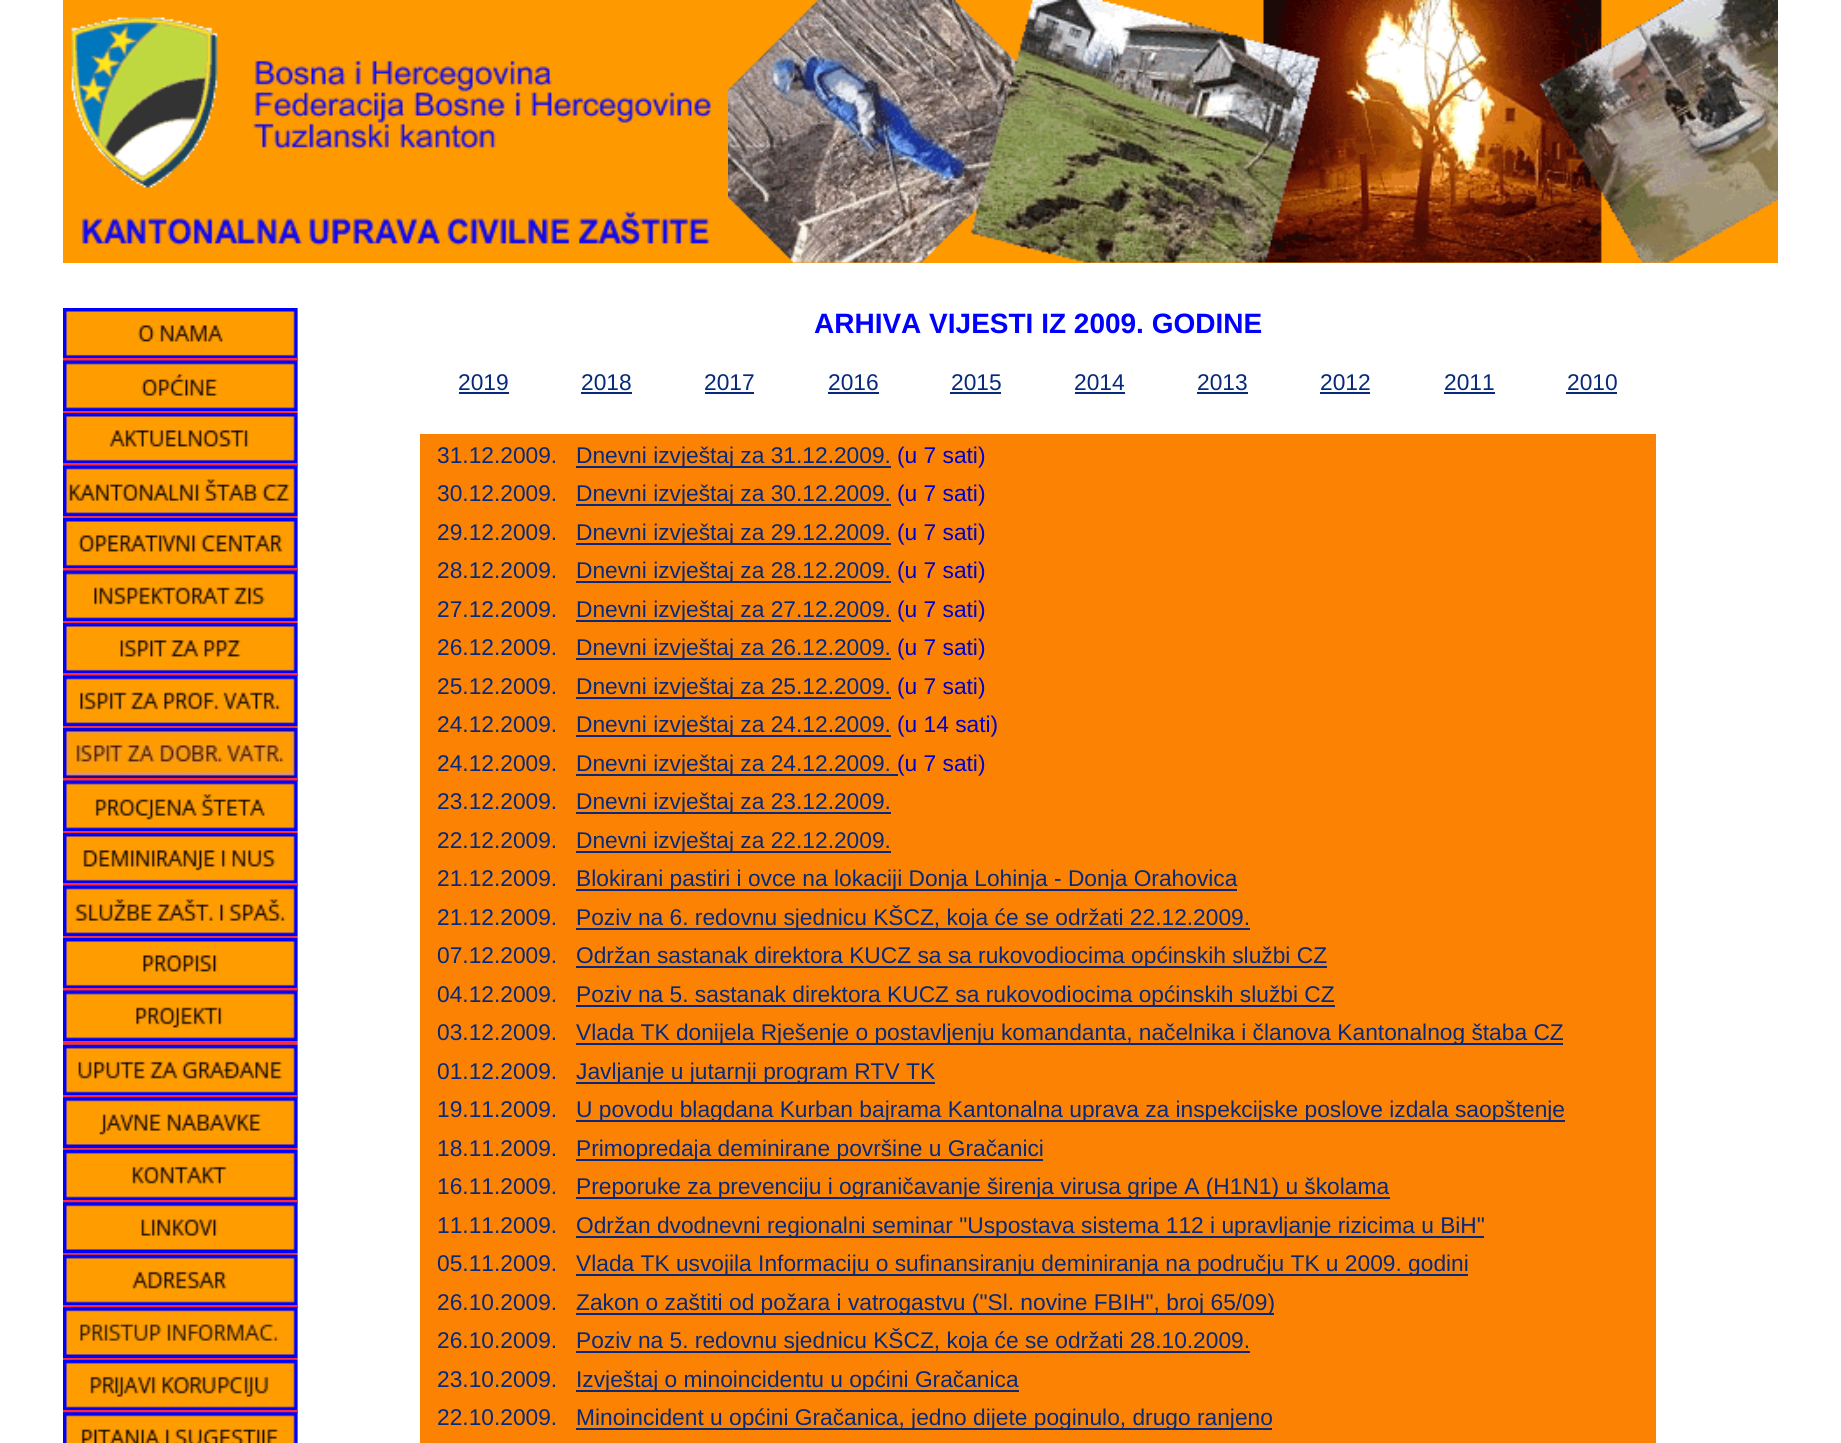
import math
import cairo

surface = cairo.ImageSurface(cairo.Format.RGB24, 1841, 1443)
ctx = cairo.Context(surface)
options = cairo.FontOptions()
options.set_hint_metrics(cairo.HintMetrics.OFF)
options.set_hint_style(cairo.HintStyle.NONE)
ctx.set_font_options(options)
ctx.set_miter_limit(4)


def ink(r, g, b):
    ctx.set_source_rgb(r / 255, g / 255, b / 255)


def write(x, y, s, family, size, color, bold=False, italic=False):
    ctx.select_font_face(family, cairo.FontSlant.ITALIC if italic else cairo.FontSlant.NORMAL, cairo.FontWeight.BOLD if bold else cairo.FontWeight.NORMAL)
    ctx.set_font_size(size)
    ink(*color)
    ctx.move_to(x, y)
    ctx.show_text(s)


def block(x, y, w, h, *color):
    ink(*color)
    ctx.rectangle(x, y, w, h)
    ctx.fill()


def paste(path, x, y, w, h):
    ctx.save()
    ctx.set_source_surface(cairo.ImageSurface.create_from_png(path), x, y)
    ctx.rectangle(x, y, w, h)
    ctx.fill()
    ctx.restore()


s1 = dict(family="Liberation Sans", size=28, color=(0, 0, 255), bold=True)
s2 = dict(family="Liberation Sans", size=22.75, color=(6, 41, 123))
s3 = dict(family="Liberation Sans", size=22.75, color=(0, 0, 204))

ink(255, 255, 255)
ctx.paint()
block(63, 0, 1715, 263, 255, 153, 0)
paste("pic1.png", 71, 17, 640, 229)
paste("pic2.png", 728, 0, 1050, 263)
paste("pic3.png", 63, 308, 235, 1135)
paste("pic4.png", 63, 308, 235, 50)
block(63, 358, 235, 3, 255, 43, 51)
paste("pic5.png", 63, 360, 235, 52)
paste("pic6.png", 63, 411, 235, 2)
paste("pic7.png", 63, 413, 235, 50)
block(63, 463, 235, 3, 255, 43, 51)
paste("pic8.png", 63, 465, 235, 52)
paste("pic6.png", 63, 516, 235, 2)
paste("pic9.png", 63, 518, 235, 50)
block(63, 568, 235, 3, 255, 43, 51)
paste("pic10.png", 63, 570, 235, 52)
paste("pic6.png", 63, 621, 235, 2)
paste("pic11.png", 63, 623, 235, 50)
block(63, 673, 235, 3, 255, 43, 51)
paste("pic12.png", 63, 675, 235, 52)
paste("pic6.png", 63, 726, 235, 2)
paste("pic13.png", 63, 728, 235, 50)
block(63, 778, 235, 3, 255, 43, 51)
paste("pic14.png", 63, 780, 235, 52)
paste("pic6.png", 63, 831, 235, 2)
paste("pic15.png", 63, 833, 235, 50)
block(63, 883, 235, 3, 255, 43, 51)
paste("pic16.png", 63, 885, 235, 52)
paste("pic6.png", 63, 936, 235, 2)
paste("pic17.png", 63, 938, 235, 50)
block(63, 988, 235, 3, 255, 43, 51)
paste("pic18.png", 63, 990, 235, 52)
paste("pic6.png", 63, 1041, 235, 2)
paste("pic19.png", 63, 1043, 235, 2)
paste("pic20.png", 63, 1044, 235, 51)
block(63, 1095, 235, 3, 255, 43, 51)
paste("pic21.png", 63, 1097, 235, 51)
paste("pic19.png", 63, 1148, 235, 2)
paste("pic22.png", 63, 1149, 235, 51)
block(63, 1200, 235, 3, 255, 43, 51)
paste("pic23.png", 63, 1202, 235, 51)
paste("pic19.png", 63, 1253, 235, 2)
paste("pic24.png", 63, 1254, 235, 51)
block(63, 1305, 235, 3, 255, 43, 51)
paste("pic25.png", 63, 1307, 235, 51)
paste("pic19.png", 63, 1358, 235, 2)
paste("pic26.png", 63, 1359, 235, 51)
block(63, 1410, 235, 3, 255, 43, 51)
paste("pic27.png", 63, 1412, 235, 31)
write(814, 333, "ARHIVA VIJESTI IZ 2009. GODINE", **s1)
write(458, 390, "2019", **s2)
block(459, 392, 50, 2, 6, 41, 123)
write(581, 390, "2018", **s2)
block(581, 392, 51, 2, 6, 41, 123)
write(704, 390, "2017", **s2)
block(705, 392, 49, 2, 6, 41, 123)
write(828, 390, "2016", **s2)
block(828, 392, 51, 2, 6, 41, 123)
write(951, 390, "2015", **s2)
block(950, 392, 51, 2, 6, 41, 123)
write(1074, 390, "2014", **s2)
block(1075, 392, 50, 2, 6, 41, 123)
write(1197, 390, "2013", **s2)
block(1197, 392, 51, 2, 6, 41, 123)
write(1320, 390, "2012", **s2)
block(1320, 392, 50, 2, 6, 41, 123)
write(1444, 390, "2011", **s2)
block(1444, 392, 51, 2, 6, 41, 123)
write(1567, 390, "2010", **s2)
block(1566, 392, 51, 2, 6, 41, 123)
block(420, 434, 1236, 1009, 252, 130, 4)
write(437, 463, "31.12.2009.", **s2)
block(576, 466, 315, 2, 6, 41, 123)
write(576, 463, "Dnevni izvještaj za 31.12.2009.", **s2)
write(897, 463, "(u 7 sati)", **s3)
write(437, 501, "30.12.2009.", **s2)
block(576, 504, 315, 2, 6, 41, 123)
write(576, 501, "Dnevni izvještaj za 30.12.2009.", **s2)
write(897, 501, "(u 7 sati)", **s3)
write(437, 540, "29.12.2009.", **s2)
block(576, 543, 315, 2, 6, 41, 123)
write(576, 540, "Dnevni izvještaj za 29.12.2009.", **s2)
write(897, 540, "(u 7 sati)", **s3)
write(437, 578, "28.12.2009.", **s2)
block(576, 581, 315, 2, 6, 41, 123)
write(576, 578, "Dnevni izvještaj za 28.12.2009.", **s2)
write(897, 578, "(u 7 sati)", **s3)
write(437, 617, "27.12.2009.", **s2)
block(576, 620, 315, 2, 6, 41, 123)
write(576, 617, "Dnevni izvještaj za 27.12.2009.", **s2)
write(897, 617, "(u 7 sati)", **s3)
write(437, 655, "26.12.2009.", **s2)
block(576, 658, 315, 2, 6, 41, 123)
write(576, 655, "Dnevni izvještaj za 26.12.2009.", **s2)
write(897, 655, "(u 7 sati)", **s3)
write(437, 694, "25.12.2009.", **s2)
block(576, 697, 315, 2, 6, 41, 123)
write(576, 694, "Dnevni izvještaj za 25.12.2009.", **s2)
write(897, 694, "(u 7 sati)", **s3)
write(437, 732, "24.12.2009.", **s2)
block(576, 735, 315, 2, 6, 41, 123)
write(576, 732, "Dnevni izvještaj za 24.12.2009.", **s2)
write(897, 732, "(u 14 sati)", **s3)
write(437, 771, "24.12.2009.", **s2)
block(576, 774, 322, 2, 6, 41, 123)
write(576, 771, "Dnevni izvještaj za 24.12.2009.", **s2)
write(897, 771, "(u 7 sati)", **s3)
write(437, 809, "23.12.2009.", **s2)
block(576, 812, 315, 2, 6, 41, 123)
write(576, 809, "Dnevni izvještaj za 23.12.2009.", **s2)
write(437, 848, "22.12.2009.", **s2)
block(576, 851, 315, 2, 6, 41, 123)
write(576, 848, "Dnevni izvještaj za 22.12.2009.", **s2)
write(437, 886, "21.12.2009.", **s2)
block(576, 889, 661, 2, 6, 41, 123)
write(576, 886, "Blokirani pastiri i ovce na lokaciji Donja Lohinja - Donja Orahovica", **s2)
write(437, 925, "21.12.2009.", **s2)
block(576, 928, 674, 2, 6, 41, 123)
write(576, 925, "Poziv na 6. redovnu sjednicu KŠCZ, koja će se održati 22.12.2009.", **s2)
write(437, 963, "07.12.2009.", **s2)
block(576, 966, 751, 2, 6, 41, 123)
write(576, 963, "Održan sastanak direktora KUCZ sa sa rukovodiocima općinskih službi CZ", **s2)
write(437, 1002, "04.12.2009.", **s2)
block(576, 1005, 759, 2, 6, 41, 123)
write(576, 1002, "Poziv na 5. sastanak direktora KUCZ sa rukovodiocima općinskih službi CZ", **s2)
write(437, 1040, "03.12.2009.", **s2)
block(576, 1043, 987, 2, 6, 41, 123)
write(576, 1040, "Vlada TK donijela Rješenje o postavljenju komandanta, načelnika i članova Kantonalnog štaba CZ", **s2)
write(437, 1079, "01.12.2009.", **s2)
block(576, 1082, 359, 2, 6, 41, 123)
write(576, 1079, "Javljanje u jutarnji program RTV TK", **s2)
write(437, 1117, "19.11.2009.", **s2)
block(576, 1120, 989, 2, 6, 41, 123)
write(576, 1117, "U povodu blagdana Kurban bajrama Kantonalna uprava za inspekcijske poslove izdala saopštenje", **s2)
write(437, 1156, "18.11.2009.", **s2)
block(576, 1159, 467, 2, 6, 41, 123)
write(576, 1156, "Primopredaja deminirane površine u Gračanici", **s2)
write(437, 1194, "16.11.2009.", **s2)
block(576, 1197, 814, 2, 6, 41, 123)
write(576, 1194, "Preporuke za prevenciju i ograničavanje širenja virusa gripe A (H1N1) u školama", **s2)
write(437, 1233, "11.11.2009.", **s2)
block(576, 1236, 908, 2, 6, 41, 123)
write(576, 1233, "Održan dvodnevni regionalni seminar \"Uspostava sistema 112 i upravljanje rizicima u BiH\"", **s2)
write(437, 1271, "05.11.2009.", **s2)
block(576, 1274, 892, 2, 6, 41, 123)
write(576, 1271, "Vlada TK usvojila Informaciju o sufinansiranju deminiranja na području TK u 2009. godini", **s2)
write(437, 1310, "26.10.2009.", **s2)
block(576, 1313, 698, 2, 6, 41, 123)
write(576, 1310, "Zakon o zaštiti od požara i vatrogastvu (\"Sl. novine FBIH\", broj 65/09)", **s2)
write(437, 1348, "26.10.2009.", **s2)
block(576, 1351, 674, 2, 6, 41, 123)
write(576, 1348, "Poziv na 5. redovnu sjednicu KŠCZ, koja će se održati 28.10.2009.", **s2)
write(437, 1387, "23.10.2009.", **s2)
block(576, 1390, 443, 2, 6, 41, 123)
write(576, 1387, "Izvještaj o minoincidentu u općini Gračanica", **s2)
write(437, 1425, "22.10.2009.", **s2)
block(576, 1428, 696, 2, 6, 41, 123)
write(576, 1425, "Minoincident u općini Gračanica, jedno dijete poginulo, drugo ranjeno", **s2)
surface.write_to_png("screenshot.png")
